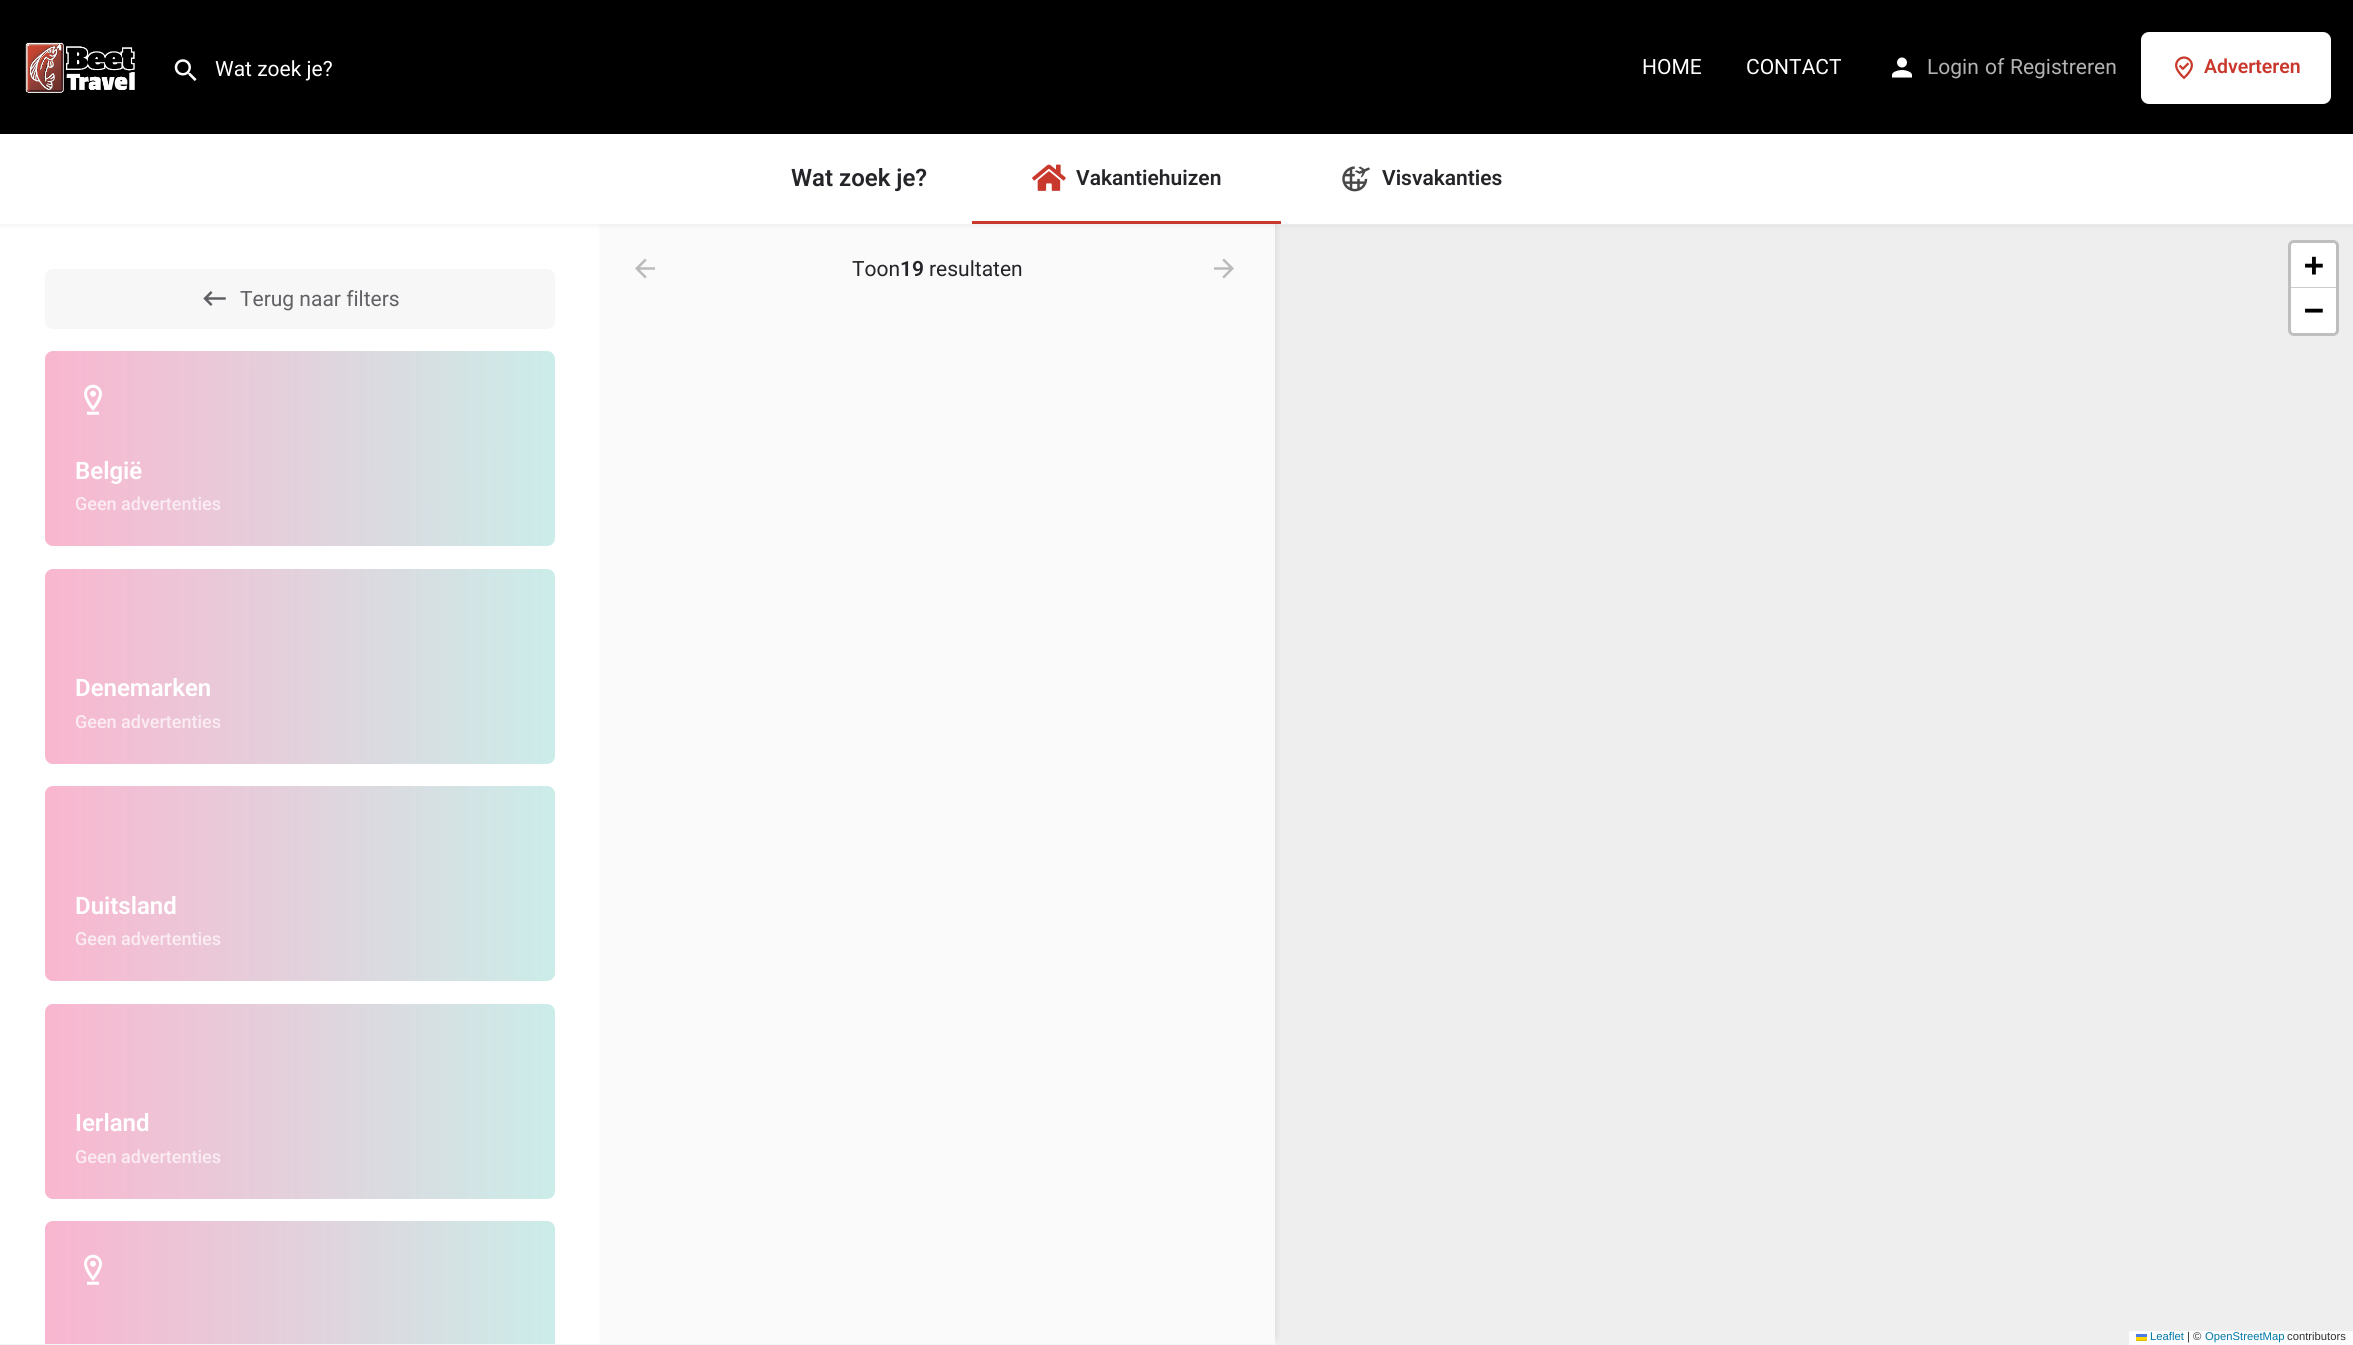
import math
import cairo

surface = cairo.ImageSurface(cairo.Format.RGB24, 2353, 1345)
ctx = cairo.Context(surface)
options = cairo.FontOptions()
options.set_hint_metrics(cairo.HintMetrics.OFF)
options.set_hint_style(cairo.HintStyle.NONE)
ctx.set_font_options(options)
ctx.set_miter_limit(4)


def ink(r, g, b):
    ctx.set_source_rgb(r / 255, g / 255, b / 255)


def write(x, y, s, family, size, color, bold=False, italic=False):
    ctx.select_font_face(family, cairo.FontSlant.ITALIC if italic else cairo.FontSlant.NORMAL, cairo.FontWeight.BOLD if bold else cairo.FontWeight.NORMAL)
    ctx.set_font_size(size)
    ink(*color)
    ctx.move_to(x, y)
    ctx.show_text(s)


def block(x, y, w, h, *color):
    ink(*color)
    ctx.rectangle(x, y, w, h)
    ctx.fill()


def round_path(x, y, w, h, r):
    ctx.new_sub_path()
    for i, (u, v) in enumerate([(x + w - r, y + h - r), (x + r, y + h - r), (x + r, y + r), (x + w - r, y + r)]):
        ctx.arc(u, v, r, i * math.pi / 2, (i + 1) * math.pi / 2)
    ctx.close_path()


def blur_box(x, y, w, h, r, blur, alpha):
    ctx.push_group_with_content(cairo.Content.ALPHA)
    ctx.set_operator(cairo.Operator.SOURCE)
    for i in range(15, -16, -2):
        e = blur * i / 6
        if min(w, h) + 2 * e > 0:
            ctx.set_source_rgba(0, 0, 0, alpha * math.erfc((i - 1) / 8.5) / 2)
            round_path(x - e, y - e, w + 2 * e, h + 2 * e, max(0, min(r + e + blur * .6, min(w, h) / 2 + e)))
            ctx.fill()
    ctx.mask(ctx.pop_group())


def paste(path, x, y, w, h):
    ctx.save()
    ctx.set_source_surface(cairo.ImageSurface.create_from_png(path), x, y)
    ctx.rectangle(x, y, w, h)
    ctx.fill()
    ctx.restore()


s1 = dict(family="Roboto", size=21, color=(255, 255, 255))
s2 = dict(family="Roboto", size=21, color=(179, 179, 179))
s3 = dict(family="Roboto SemiBold", size=19.5, color=(201, 56, 44))
s4 = dict(family="Roboto SemiBold", size=24, color=(36, 36, 41))
s5 = dict(family="Roboto SemiBold", size=21, color=(36, 36, 41))
s6 = dict(family="Roboto", size=21, color=(36, 36, 41))
s7 = dict(family="Roboto", size=21, color=(97, 97, 101))
s8 = dict(family="Roboto SemiBold", size=24, color=(255, 255, 255))
s9 = dict(family="Roboto Medium", size=18, color=(250, 236, 242))
s10 = dict(family="DejaVu Sans Mono", size=33, color=(0, 0, 0), bold=True)
s11 = dict(family="Liberation Sans", size=11.25, color=(0, 120, 168))
s12 = dict(family="Liberation Sans", size=11.25, color=(51, 51, 51))

ink(244, 244, 244)
ctx.paint()
block(0, 224, 600, 1120, 255, 255, 255)
block(1275, 225, 1078, 1120, 238, 238, 238)
ink(0, 0, 0)
blur_box(602, 218, 675, 1120, 0, 3, 0.07)
block(600, 224, 675, 1120, 250, 250, 250)
ink(0, 0, 0)
blur_box(0, 135, 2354, 90, 0, 3, 0.07)
block(0, 0, 2353, 134, 0, 0, 0)
paste("pic1.png", 25, 42, 110, 51)
paste("pic2.png", 174, 59, 23, 22)
write(215, 76, "Wat zoek je?", **s1)
write(1642, 74, "HOME", **s1)
write(1746, 74, "CONTACT", **s1)
paste("pic3.png", 1892, 57, 20, 21)
write(1927, 74, "Login", **s2)
write(1985, 74, "of", **s2)
write(2010, 74, "Registreren", **s2)
ink(255, 255, 255)
round_path(2141, 32, 190, 72, 8)
ctx.fill()
paste("pic4.png", 2175, 56, 18, 24)
write(2204, 73, "Adverteren", **s3)
block(0, 134, 2353, 90, 255, 255, 255)
write(791, 186, "Wat zoek je?", **s4)
paste("pic5.png", 1032, 164, 34, 27)
write(1076, 185, "Vakantiehuizen", **s5)
block(972, 221, 309, 3, 201, 56, 44)
paste("pic6.png", 1342, 166, 28, 26)
write(1382, 185, "Visvakanties", **s5)
paste("pic7.png", 635, 258, 20, 21)
write(852, 276, "Toon", **s6)
write(900, 276, "19", **s5)
write(929, 276, "resultaten", **s6)
paste("pic8.png", 1214, 258, 20, 21)
ink(246, 247, 246)
round_path(45, 269, 510, 60, 8)
ctx.fill()
paste("pic9.png", 203, 291, 23, 15)
write(240, 306, "Terug naar filters", **s7)
gradient = cairo.LinearGradient(555, 448, 45, 449)
gradient.add_color_stop_rgba(0, 0.796, 0.929, 0.914, 1)
gradient.add_color_stop_rgba(1, 0.976, 0.714, 0.812, 1)
ctx.set_source(gradient)
round_path(45, 351, 510, 195, 8)
ctx.fill()
paste("pic10.png", 84, 384, 18, 31)
write(75, 479, "België", **s8)
write(75, 510, "Geen advertenties", **s9)
gradient = cairo.LinearGradient(555, 666, 45, 666)
gradient.add_color_stop_rgba(0, 0.796, 0.929, 0.914, 1)
gradient.add_color_stop_rgba(1, 0.976, 0.714, 0.812, 1)
ctx.set_source(gradient)
round_path(45, 569, 510, 195, 8)
ctx.fill()
write(75, 696, "Denemarken", **s8)
write(75, 728, "Geen advertenties", **s9)
gradient = cairo.LinearGradient(555, 884, 45, 884)
gradient.add_color_stop_rgba(0, 0.796, 0.929, 0.914, 1)
gradient.add_color_stop_rgba(1, 0.976, 0.714, 0.812, 1)
ctx.set_source(gradient)
round_path(45, 786, 510, 195, 8)
ctx.fill()
write(75, 914, "Duitsland", **s8)
write(75, 945, "Geen advertenties", **s9)
gradient = cairo.LinearGradient(555, 1101, 45, 1101)
gradient.add_color_stop_rgba(0, 0.796, 0.929, 0.914, 1)
gradient.add_color_stop_rgba(1, 0.976, 0.714, 0.812, 1)
ctx.set_source(gradient)
round_path(45, 1004, 510, 195, 8)
ctx.fill()
write(75, 1131, "Ierland", **s8)
write(75, 1163, "Geen advertenties", **s9)
gradient = cairo.LinearGradient(555, 1319, 45, 1319)
gradient.add_color_stop_rgba(0, 0.796, 0.929, 0.914, 1)
gradient.add_color_stop_rgba(1, 0.976, 0.71, 0.812, 1)
ctx.set_source(gradient)
ctx.new_path()
ctx.move_to(53, 1221)
ctx.line_to(547, 1221)
ctx.curve_to(551.5, 1221, 555, 1224.5, 555, 1229)
ctx.line_to(555, 1344)
ctx.line_to(45, 1344)
ctx.line_to(45, 1229)
ctx.curve_to(45, 1224.5, 48.5, 1221, 53, 1221)
ctx.close_path()
ctx.fill()
paste("pic11.png", 84, 1254, 18, 31)
round_path(2289.5, 241.5, 48, 93, 4.5)
ink(190, 190, 190)
ctx.set_line_width(3)
ctx.stroke()
ink(255, 255, 255)
ctx.new_path()
ctx.move_to(2294, 243)
ctx.line_to(2333, 243)
ctx.curve_to(2334.5, 243, 2336, 244.5, 2336, 246)
ctx.line_to(2336, 288)
ctx.line_to(2291, 288)
ctx.line_to(2291, 246)
ctx.curve_to(2291, 244.5, 2292.5, 243, 2294, 243)
ctx.close_path()
ctx.fill()
block(2291, 287, 45, 1, 204, 204, 204)
write(2304, 276, "+", **s10)
ink(255, 255, 255)
ctx.new_path()
ctx.move_to(2291, 288)
ctx.line_to(2336, 288)
ctx.line_to(2336, 330)
ctx.curve_to(2336, 331.5, 2334.5, 333, 2333, 333)
ctx.line_to(2294, 333)
ctx.curve_to(2292.5, 333, 2291, 331.5, 2291, 330)
ctx.close_path()
ctx.fill()
write(2304, 321, "−", **s10)
block(2129, 1331, 224, 14, 252, 252, 252)
write(2150, 1340, "Leaflet", **s11)
block(2136, 1334, 11, 3, 76, 123, 225)
block(2136, 1337, 11, 3, 255, 213, 0)
block(2136, 1340, 11, 1, 224, 188, 0)
write(2187, 1340, "| ©", **s12)
write(2205, 1340, "OpenStreetMap", **s11)
write(2287, 1340, "contributors", **s12)
surface.write_to_png("screenshot.png")
